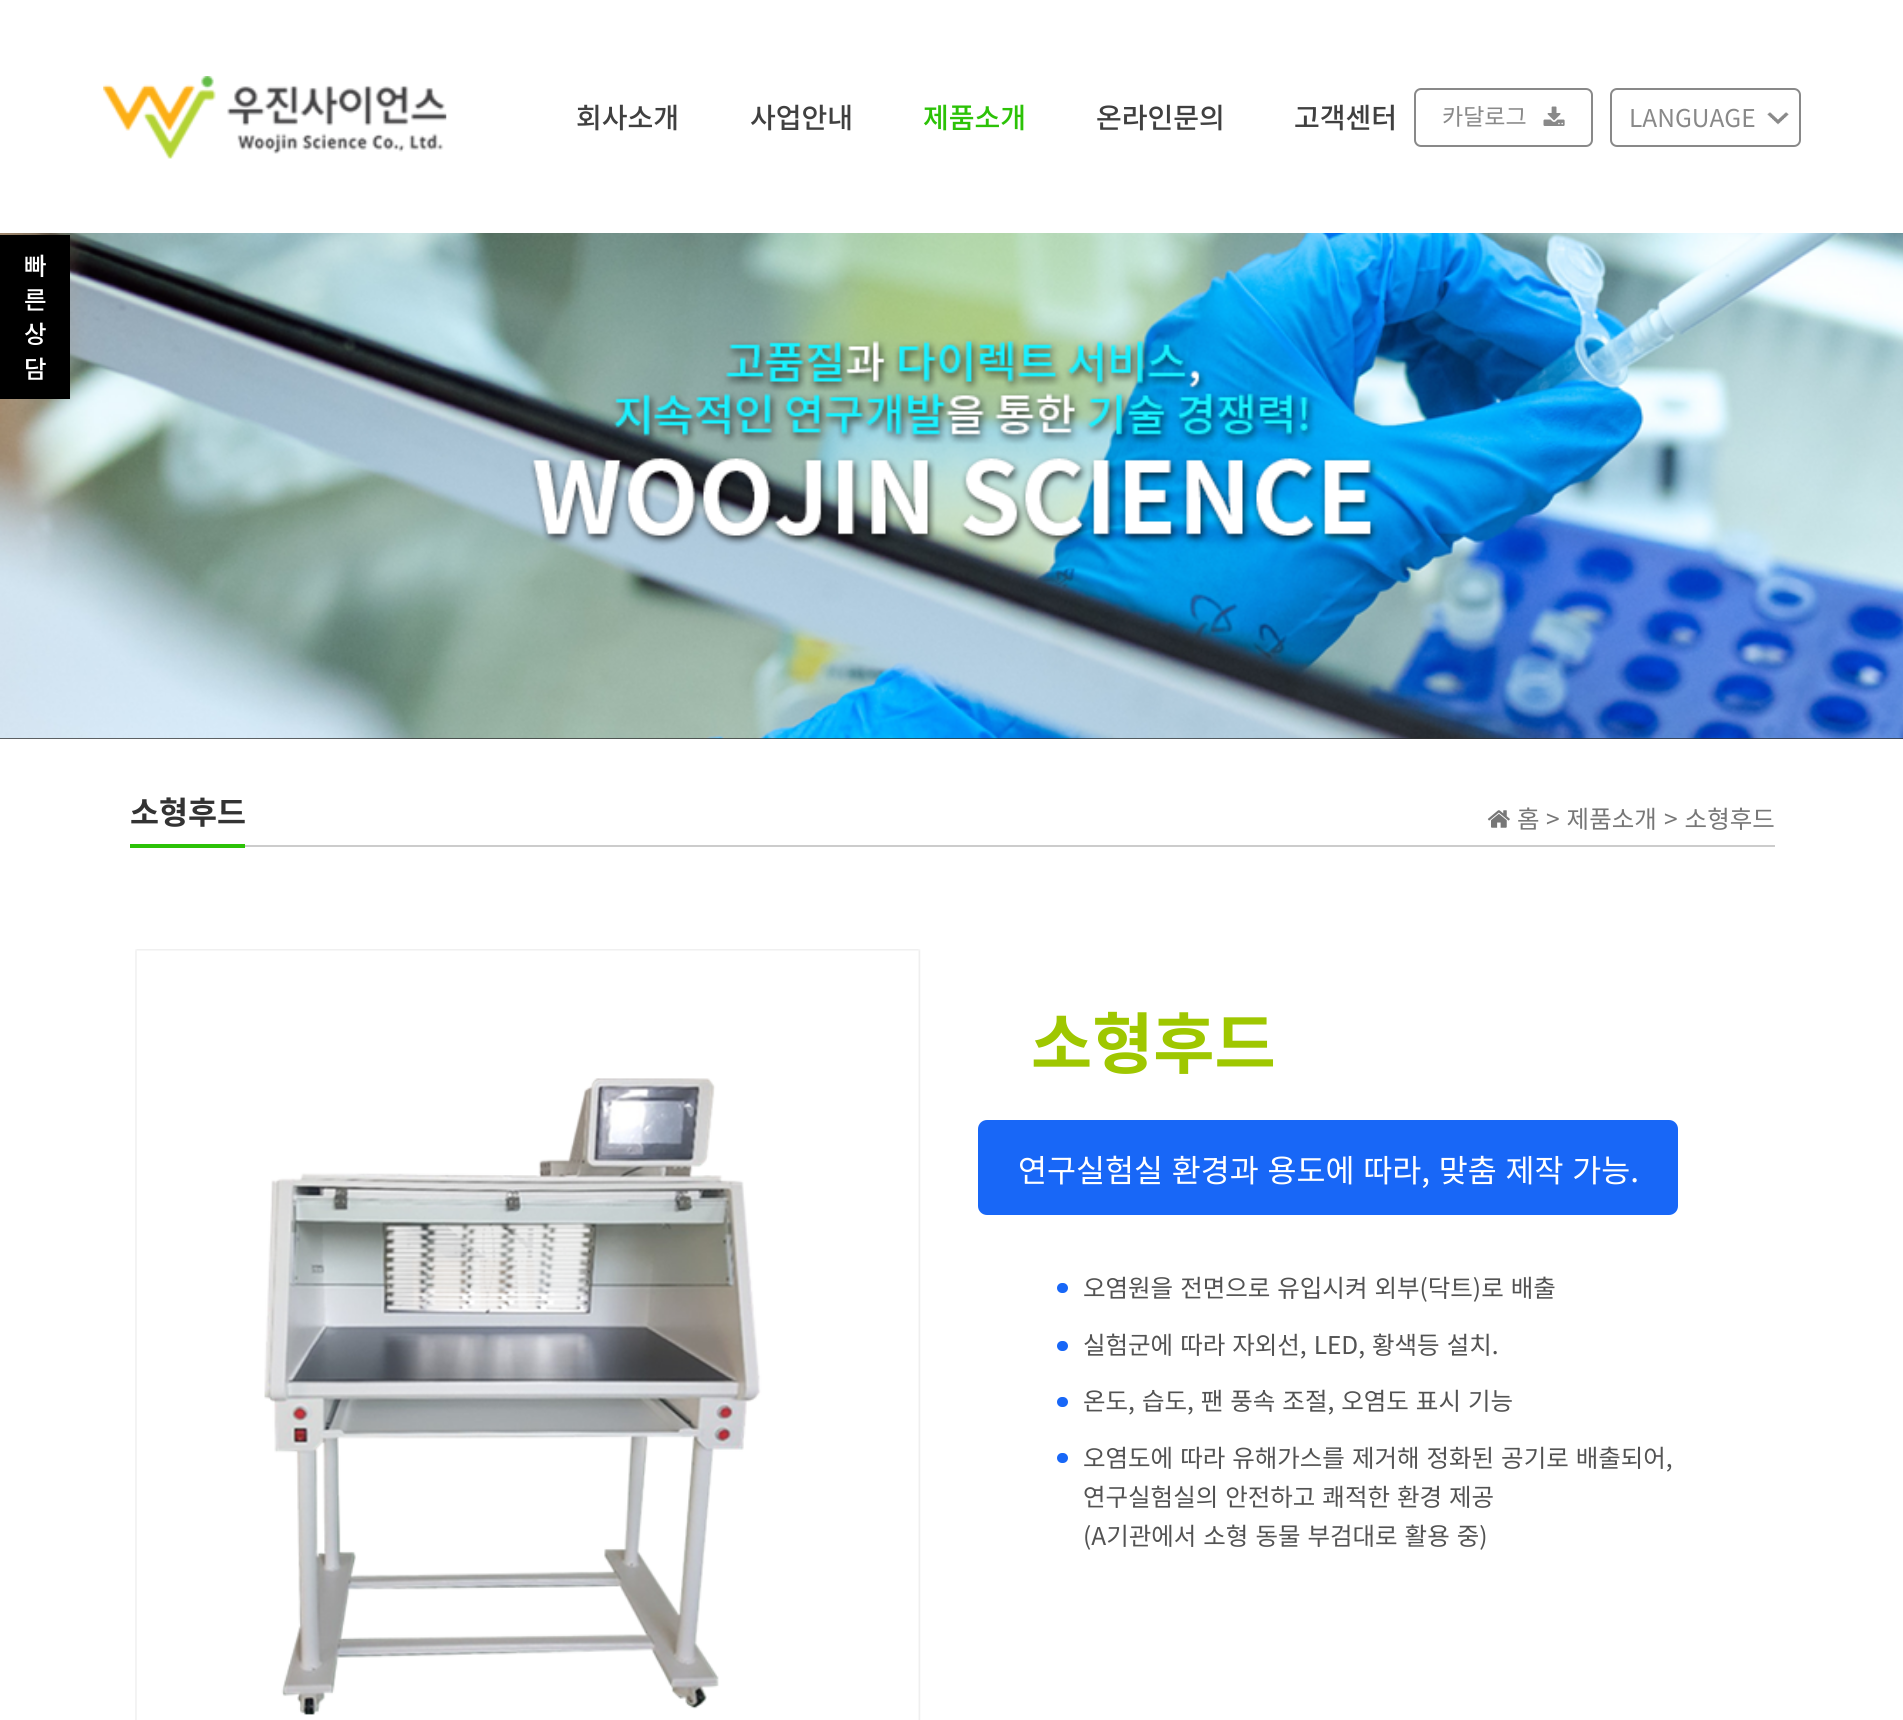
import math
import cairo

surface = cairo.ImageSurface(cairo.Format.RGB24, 1903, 1720)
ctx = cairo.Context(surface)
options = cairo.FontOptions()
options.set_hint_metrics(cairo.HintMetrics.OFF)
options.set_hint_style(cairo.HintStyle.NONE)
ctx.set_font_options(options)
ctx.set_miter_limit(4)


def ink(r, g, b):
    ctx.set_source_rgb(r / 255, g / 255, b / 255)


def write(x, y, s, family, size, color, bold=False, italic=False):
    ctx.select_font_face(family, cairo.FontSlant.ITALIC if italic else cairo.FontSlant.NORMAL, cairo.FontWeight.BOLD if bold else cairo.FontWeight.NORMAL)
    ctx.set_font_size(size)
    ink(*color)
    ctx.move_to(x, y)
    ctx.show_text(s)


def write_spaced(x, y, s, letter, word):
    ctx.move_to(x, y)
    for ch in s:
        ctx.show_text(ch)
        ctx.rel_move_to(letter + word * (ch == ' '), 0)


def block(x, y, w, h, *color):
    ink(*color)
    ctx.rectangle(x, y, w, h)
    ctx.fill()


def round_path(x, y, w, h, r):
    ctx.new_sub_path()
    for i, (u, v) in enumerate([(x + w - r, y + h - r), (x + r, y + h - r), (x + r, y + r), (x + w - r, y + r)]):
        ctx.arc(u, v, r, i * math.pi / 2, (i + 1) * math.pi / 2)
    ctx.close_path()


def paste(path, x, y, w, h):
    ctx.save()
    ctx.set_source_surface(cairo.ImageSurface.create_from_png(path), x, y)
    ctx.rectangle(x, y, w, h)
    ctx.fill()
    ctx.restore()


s1 = dict(family="Noto Sans KR Medium", size=28, color=(64, 64, 64))
s2 = dict(family="Noto Sans KR Medium", size=28, color=(44, 194, 7))
s3 = dict(family="Noto Sans KR", size=23, color=(137, 137, 137))
s4 = dict(family="Noto Sans KR", size=24.5, color=(137, 137, 137))
s5 = dict(family="Noto Sans KR Medium", size=24.5, color=(255, 255, 255))
s6 = dict(family="Noto Sans KR", size=31.5, color=(51, 51, 51), bold=True)
s7 = dict(family="Noto Sans KR", size=24.5, color=(119, 119, 119))
s8 = dict(family="Noto Sans KR", size=66.5, color=(159, 199, 0), bold=True)

ink(255, 255, 255)
ctx.paint()
paste("pic1.png", 103, 76, 344, 83)
write(576, 128, "회사소개", **s1)
write(750, 128, "사업안내", **s1)
write(923, 128, "제품소개", **s2)
write(1096, 128, "온라인문의", **s1)
write(1294, 128, "고객센터", **s1)
round_path(1415, 89, 177, 57, 6)
ink(137, 137, 137)
ctx.stroke()
write(1442, 125, "카달로그", **s3)
paste("pic2.png", 1543, 106, 22, 20)
paste("pic3.png", 1767, 112, 22, 13)
round_path(1611, 89, 189, 57, 6)
ctx.stroke()
write(1629, 127, "LANGUAGE", **s4)
block(0, 738, 1903, 1, 51, 51, 51)
paste("pic4.png", 0, 233, 1903, 506)
block(0, 235, 70, 164, 0, 0, 0)
write(24, 275, "빠", **s5)
write(24, 309, "른", **s5)
write(24, 343, "상", **s5)
write(24, 378, "담", **s5)
block(245, 845, 1530, 2, 204, 204, 204)
block(130, 844, 115, 4, 44, 194, 7)
write(130, 824, "소형후드", **s6)
paste("pic5.png", 1487, 810, 23, 18)
write(1517, 828, "홈", **s7)
write_spaced(1546, 828, "> 제품소개", 0, 1.5)
write_spaced(1664, 828, "> 소형후드", 0, 1.5)
paste("pic6.png", 135, 949, 786, 771)
write(1031, 1068, "소형후드", **s8)
ink(24, 103, 247)
round_path(978, 1120, 700, 95, 9)
ctx.fill()
ctx.select_font_face("Noto Sans KR")
ctx.set_font_size(31.5)
ink(255, 255, 255)
write_spaced(1018, 1182, "연구실험실 환경과 용도에 따라, 맞춤 제작 가능.", 0, 1.75)
ink(24, 103, 247)
round_path(1057, 1283, 11, 10, 5)
ctx.fill()
ctx.set_font_size(24.5)
ink(83, 83, 83)
write_spaced(1083, 1297, "오염원을 전면으로 유입시켜 외부(닥트)로 배출", 0, 1.5)
ink(24, 103, 247)
round_path(1057, 1341, 11, 10, 5)
ctx.fill()
ink(83, 83, 83)
write_spaced(1083, 1354, "실험군에 따라 자외선, LED, 황색등 설치.", 0, 1.5)
ink(24, 103, 247)
round_path(1057, 1397, 11, 10, 5)
ctx.fill()
ink(83, 83, 83)
write_spaced(1083, 1410, "온도, 습도, 팬 풍속 조절, 오염도 표시 기능", 0, 1.5)
ink(24, 103, 247)
round_path(1057, 1453, 11, 10, 5)
ctx.fill()
ink(83, 83, 83)
write_spaced(1083, 1467, "오염도에 따라 유해가스를 제거해 정화된 공기로 배출되어,", 0, 1.5)
write_spaced(1083, 1506, "연구실험실의 안전하고 쾌적한 환경 제공", 0, 1.5)
write_spaced(1083, 1545, "(A기관에서 소형 동물 부검대로 활용 중)", 0, 1.5)
surface.write_to_png("screenshot.png")
